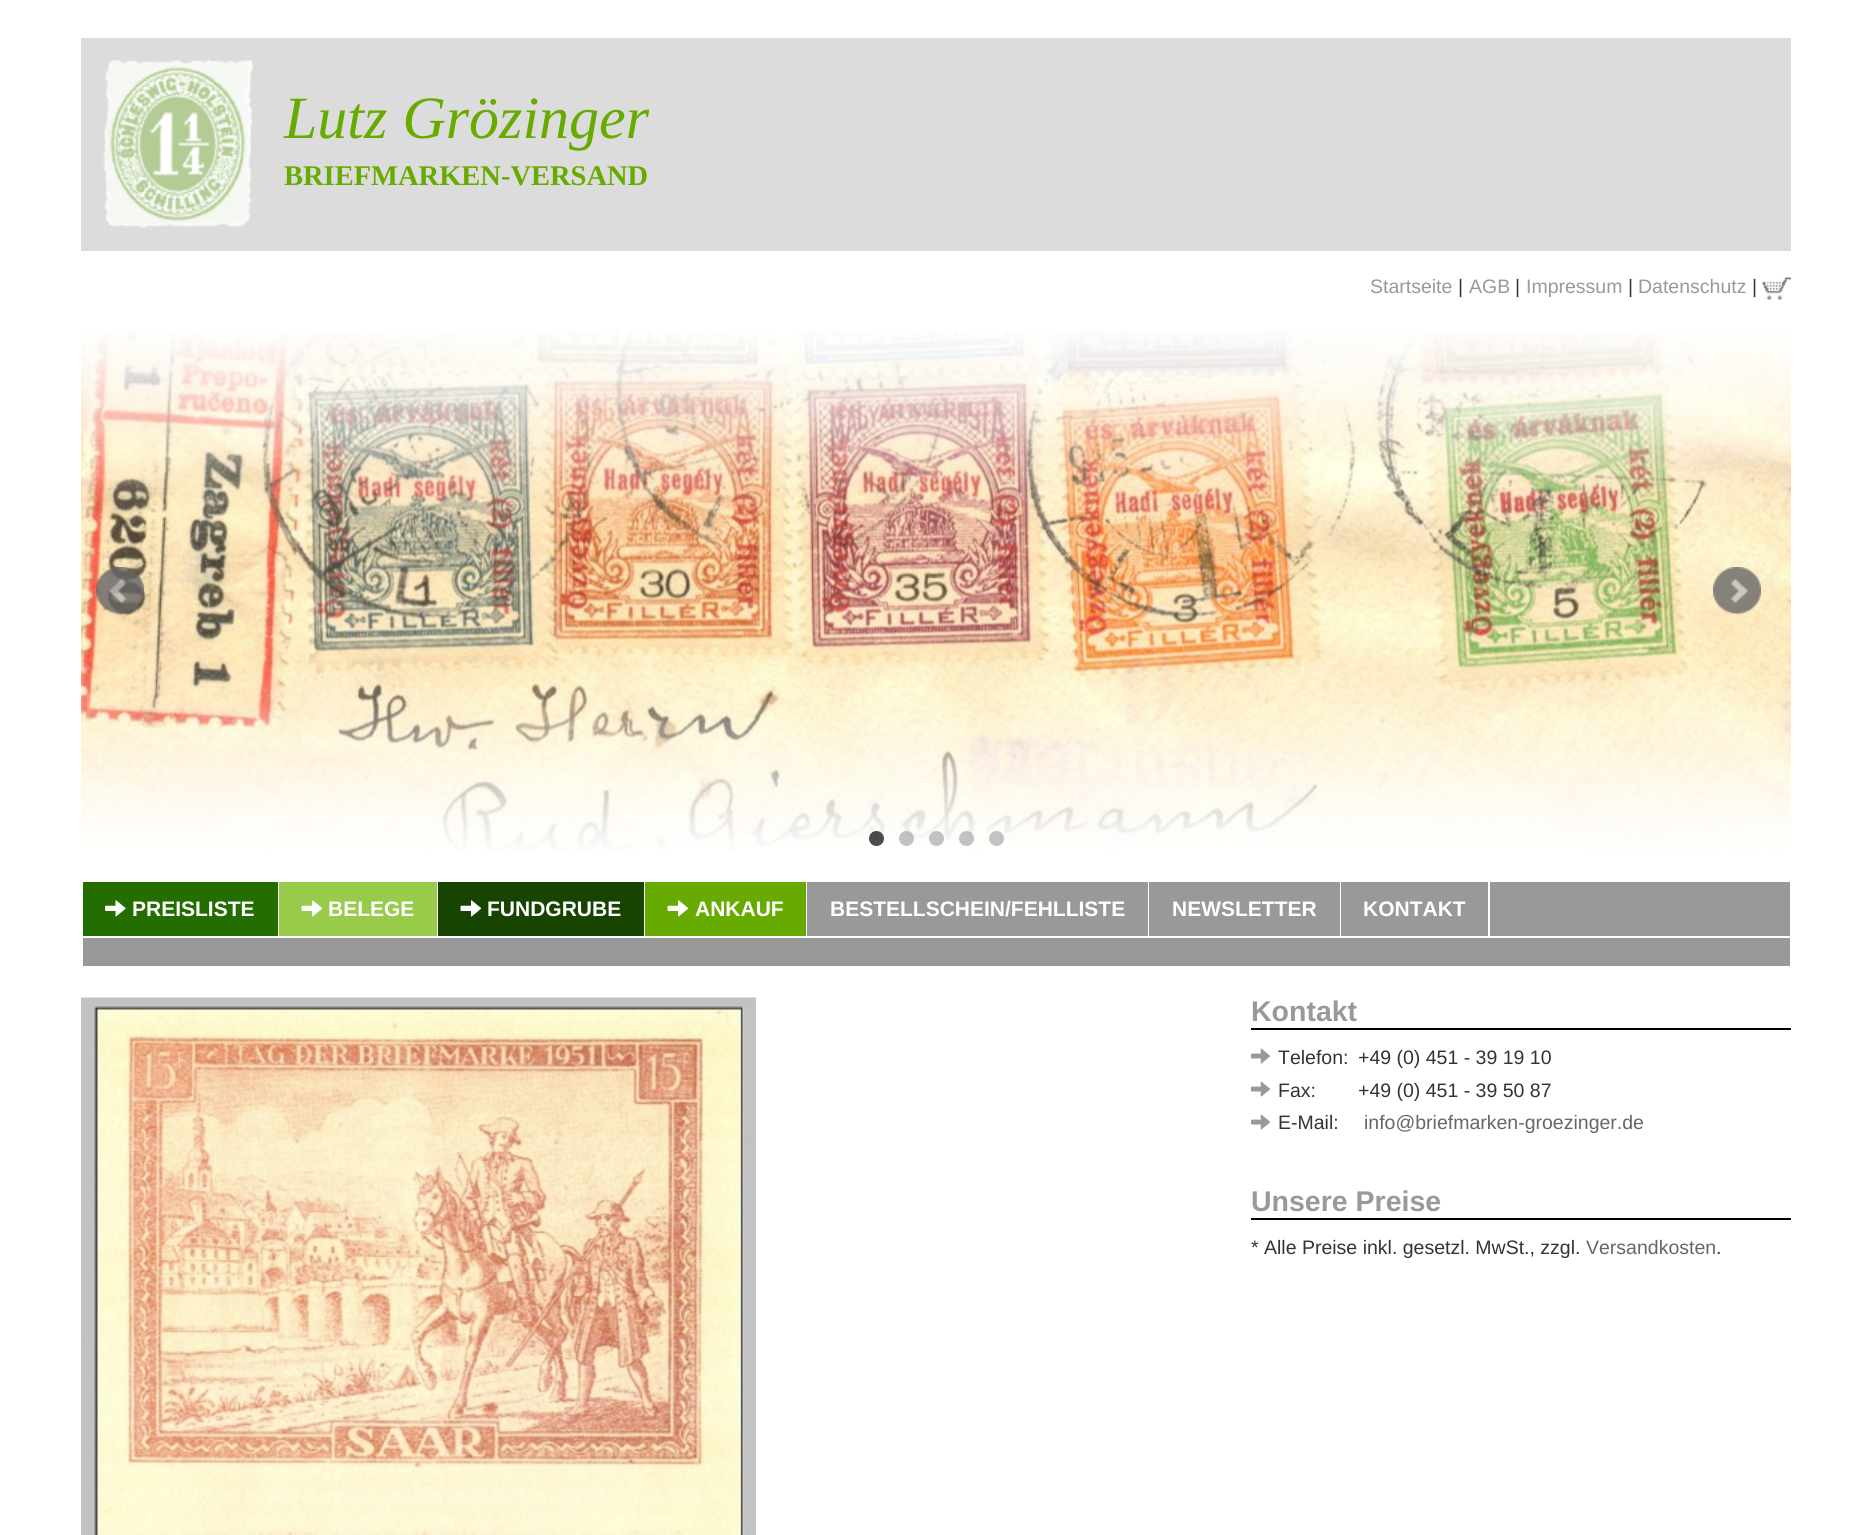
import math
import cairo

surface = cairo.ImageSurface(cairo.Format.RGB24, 1872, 1535)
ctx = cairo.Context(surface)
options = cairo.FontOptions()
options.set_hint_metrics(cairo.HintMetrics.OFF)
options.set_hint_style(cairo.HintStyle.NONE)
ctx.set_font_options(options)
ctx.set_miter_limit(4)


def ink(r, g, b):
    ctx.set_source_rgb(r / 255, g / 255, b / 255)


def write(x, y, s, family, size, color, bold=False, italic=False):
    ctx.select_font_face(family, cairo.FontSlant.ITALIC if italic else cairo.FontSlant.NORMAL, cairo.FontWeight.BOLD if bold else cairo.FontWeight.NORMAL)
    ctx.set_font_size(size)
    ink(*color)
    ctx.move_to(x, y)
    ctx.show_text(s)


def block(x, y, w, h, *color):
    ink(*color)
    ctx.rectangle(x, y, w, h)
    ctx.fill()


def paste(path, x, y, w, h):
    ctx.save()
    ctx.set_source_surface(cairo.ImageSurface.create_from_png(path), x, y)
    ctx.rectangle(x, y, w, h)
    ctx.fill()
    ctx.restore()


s1 = dict(family="Liberation Serif", size=60, color=(103, 171, 0), italic=True)
s2 = dict(family="Liberation Serif", size=28.5, color=(103, 171, 0), bold=True)
s3 = dict(family="Liberation Sans", size=19.5, color=(153, 153, 153))
s4 = dict(family="Liberation Sans", size=19.5, color=(51, 51, 51))
s5 = dict(family="Liberation Sans", size=21, color=(255, 255, 255), bold=True)
s6 = dict(family="Liberation Sans", size=28.5, color=(153, 153, 153), bold=True)
s7 = dict(family="Liberation Sans", size=19.5, color=(102, 102, 102))

ink(255, 255, 255)
ctx.paint()
block(81, 38, 1710, 213, 220, 220, 220)
paste("pic1.png", 103, 60, 151, 168)
write(284, 138, "Lutz Grözinger", **s1)
write(284, 185, "BRIEFMARKEN-VERSAND", **s2)
write(1370, 293, "Startseite", **s3)
write(1458, 293, "|", **s4)
write(1469, 293, "AGB", **s3)
write(1515, 293, "|", **s4)
write(1526, 293, "Impressum", **s3)
write(1628, 293, "|", **s4)
write(1638, 293, "Datenschutz", **s3)
write(1752, 293, "|", **s4)
paste("pic2.png", 1762, 277, 29, 23)
paste("pic3.png", 81, 330, 1710, 521)
paste("pic4.png", 96, 567, 48, 47)
paste("pic5.png", 1713, 567, 48, 47)
ctx.set_source_rgba(0, 0, 0, 0.7)
ctx.arc(876.5, 838.5, 7.5, 0, 2 * math.pi)
ctx.fill()
ctx.set_source_rgba(0.667, 0.667, 0.667, 0.7)
ctx.arc(906.5, 838.5, 7.5, 0, 2 * math.pi)
ctx.fill()
ctx.arc(936.5, 838.5, 7.5, 0, 2 * math.pi)
ctx.fill()
ctx.arc(966.5, 838.5, 7.5, 0, 2 * math.pi)
ctx.fill()
ctx.arc(996.5, 838.5, 7.5, 0, 2 * math.pi)
ctx.fill()
block(1490, 882, 300, 54, 153, 153, 153)
block(83, 882, 195, 54, 36, 109, 1)
paste("pic6.png", 105, 900, 21, 17)
write(132, 916, "PREISLISTE", **s5)
block(279, 882, 158, 54, 151, 203, 73)
paste("pic7.png", 301, 900, 22, 17)
write(328, 916, "BELEGE", **s5)
block(438, 882, 206, 54, 23, 68, 1)
paste("pic8.png", 460, 900, 22, 17)
write(487, 916, "FUNDGRUBE", **s5)
block(645, 882, 161, 54, 103, 171, 0)
paste("pic9.png", 667, 900, 22, 17)
write(695, 916, "ANKAUF", **s5)
block(807, 882, 341, 54, 153, 153, 153)
write(830, 916, "BESTELLSCHEIN/FEHLLISTE", **s5)
block(1149, 882, 191, 54, 153, 153, 153)
write(1172, 916, "NEWSLETTER", **s5)
block(1341, 882, 147, 54, 153, 153, 153)
write(1363, 916, "KONTAKT", **s5)
block(83, 938, 1707, 28, 153, 153, 153)
paste("pic10.png", 81, 997, 675, 538)
block(1251, 1028, 540, 2, 0, 0, 0)
write(1251, 1021, "Kontakt", **s6)
paste("pic11.png", 1251, 1048, 19, 16)
write(1278, 1064, "Telefon:", **s4)
write(1358, 1064, "+49 (0) 451 - 39 19 10", **s4)
paste("pic11.png", 1251, 1081, 19, 16)
write(1278, 1097, "Fax:", **s4)
write(1358, 1097, "+49 (0) 451 - 39 50 87", **s4)
paste("pic11.png", 1251, 1114, 19, 16)
write(1278, 1129, "E-Mail:", **s4)
write(1364, 1129, "info@briefmarken-groezinger.de", **s7)
block(1251, 1218, 540, 2, 0, 0, 0)
write(1251, 1211, "Unsere Preise", **s6)
write(1251, 1254, "* Alle Preise inkl. gesetzl. MwSt., zzgl.", **s4)
write(1586, 1254, "Versandkosten", **s7)
write(1716, 1254, ".", **s4)
surface.write_to_png("screenshot.png")
